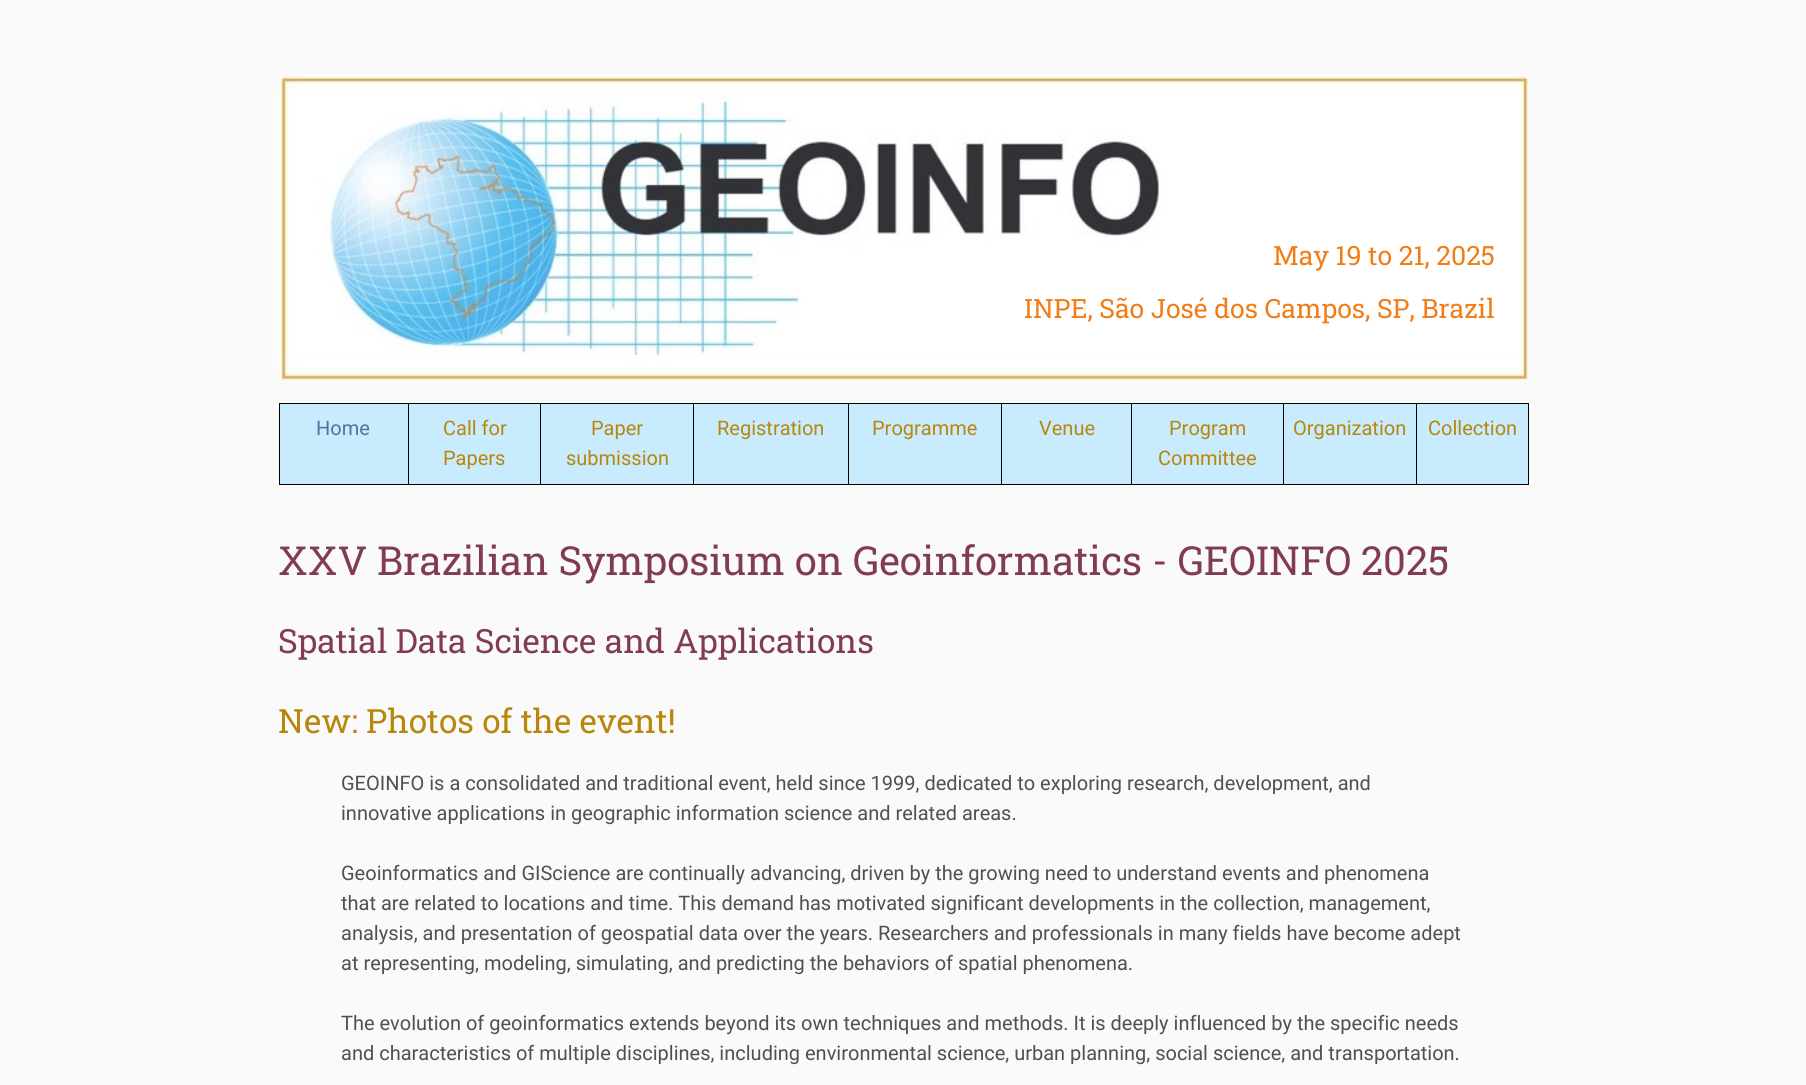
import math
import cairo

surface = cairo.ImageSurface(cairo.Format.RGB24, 1806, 1085)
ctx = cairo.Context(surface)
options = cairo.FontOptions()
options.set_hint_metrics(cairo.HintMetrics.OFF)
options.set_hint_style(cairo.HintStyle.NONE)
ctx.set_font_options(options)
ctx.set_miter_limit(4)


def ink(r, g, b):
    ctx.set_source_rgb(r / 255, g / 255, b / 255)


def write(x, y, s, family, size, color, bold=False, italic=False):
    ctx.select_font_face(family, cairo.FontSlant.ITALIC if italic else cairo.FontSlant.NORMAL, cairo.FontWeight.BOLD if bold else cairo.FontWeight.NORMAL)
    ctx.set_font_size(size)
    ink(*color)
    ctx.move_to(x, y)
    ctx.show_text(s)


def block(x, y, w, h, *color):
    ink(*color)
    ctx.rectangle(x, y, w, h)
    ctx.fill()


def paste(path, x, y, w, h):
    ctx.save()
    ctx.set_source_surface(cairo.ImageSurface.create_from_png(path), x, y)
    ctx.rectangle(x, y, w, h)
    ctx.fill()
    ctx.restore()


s1 = dict(family="Roboto Slab", size=26.6, color=(242, 125, 23))
s2 = dict(family="Roboto", size=20, color=(82, 115, 158))
s3 = dict(family="Roboto", size=20, color=(184, 134, 11))
s4 = dict(family="Roboto Slab", size=40, color=(129, 60, 84))
s5 = dict(family="Roboto Slab", size=33.4, color=(129, 60, 84))
s6 = dict(family="Roboto Slab", size=33.4, color=(184, 134, 11))
s7 = dict(family="Roboto", size=20, color=(80, 80, 80))

ink(250, 250, 250)
ctx.paint()
paste("pic1.png", 278, 75, 1251, 305)
write(1273, 265, "May 19 to 21, 2025", **s1)
write(1024, 318, "INPE, São José dos Campos, SP, Brazil", **s1)
block(280, 404, 128, 80, 200, 235, 253)
block(1416, 403, 113, 1, 0, 0, 0)
block(1284, 404, 244, 80, 200, 235, 253)
block(1528, 403, 1, 82, 0, 0, 0)
block(1416, 484, 113, 1, 0, 0, 0)
block(1416, 403, 1, 82, 0, 0, 0)
block(1283, 403, 135, 1, 0, 0, 0)
block(1283, 484, 135, 1, 0, 0, 0)
block(1283, 403, 1, 82, 0, 0, 0)
block(1131, 403, 153, 1, 0, 0, 0)
block(849, 404, 434, 80, 200, 235, 253)
block(1131, 484, 153, 1, 0, 0, 0)
block(1131, 403, 1, 82, 0, 0, 0)
block(1001, 403, 132, 1, 0, 0, 0)
block(1001, 484, 132, 1, 0, 0, 0)
block(1001, 403, 1, 82, 0, 0, 0)
block(848, 403, 155, 1, 0, 0, 0)
block(848, 484, 155, 1, 0, 0, 0)
block(848, 403, 1, 82, 0, 0, 0)
block(693, 403, 156, 1, 0, 0, 0)
block(693, 484, 156, 1, 0, 0, 0)
block(693, 403, 1, 82, 0, 0, 0)
block(540, 403, 154, 1, 0, 0, 0)
block(540, 484, 154, 1, 0, 0, 0)
block(540, 403, 1, 82, 0, 0, 0)
block(408, 403, 133, 1, 0, 0, 0)
block(408, 484, 133, 1, 0, 0, 0)
block(408, 403, 1, 82, 0, 0, 0)
block(279, 403, 130, 1, 0, 0, 0)
block(279, 484, 130, 1, 0, 0, 0)
block(279, 403, 1, 82, 0, 0, 0)
write(316, 435, "Home", **s2)
block(409, 404, 131, 80, 200, 235, 253)
write(443, 435, "Call for", **s3)
write(443, 465, "Papers", **s3)
block(541, 404, 152, 80, 200, 235, 253)
write(591, 435, "Paper", **s3)
write(566, 465, "submission", **s3)
block(694, 404, 154, 80, 200, 235, 253)
write(717, 435, "Registration", **s3)
write(872, 435, "Programme", **s3)
write(1039, 435, "Venue", **s3)
write(1169, 435, "Program", **s3)
write(1158, 465, "Committee", **s3)
write(1293, 435, "Organization", **s3)
write(1428, 435, "Collection", **s3)
write(278, 575, "XXV Brazilian Symposium on Geoinformatics - GEOINFO 2025", **s4)
write(278, 653, "Spatial Data Science and Applications", **s5)
write(278, 733, "New: Photos of the event!", **s6)
write(341, 790, "GEOINFO is a consolidated and traditional event, held since 1999, dedicated to exploring research, development, and", **s7)
write(341, 820, "innovative applications in geographic information science and related areas.", **s7)
write(341, 880, "Geoinformatics and GIScience are continually advancing, driven by the growing need to understand events and phenomena", **s7)
write(341, 910, "that are related to locations and time. This demand has motivated significant developments in the collection, management,", **s7)
write(341, 940, "analysis, and presentation of geospatial data over the years. Researchers and professionals in many fields have become adept", **s7)
write(341, 970, "at representing, modeling, simulating, and predicting the behaviors of spatial phenomena.", **s7)
write(341, 1030, "The evolution of geoinformatics extends beyond its own techniques and methods. It is deeply influenced by the specific needs", **s7)
write(341, 1060, "and characteristics of multiple disciplines, including environmental science, urban planning, social science, and transportation.", **s7)
surface.write_to_png("screenshot.png")
